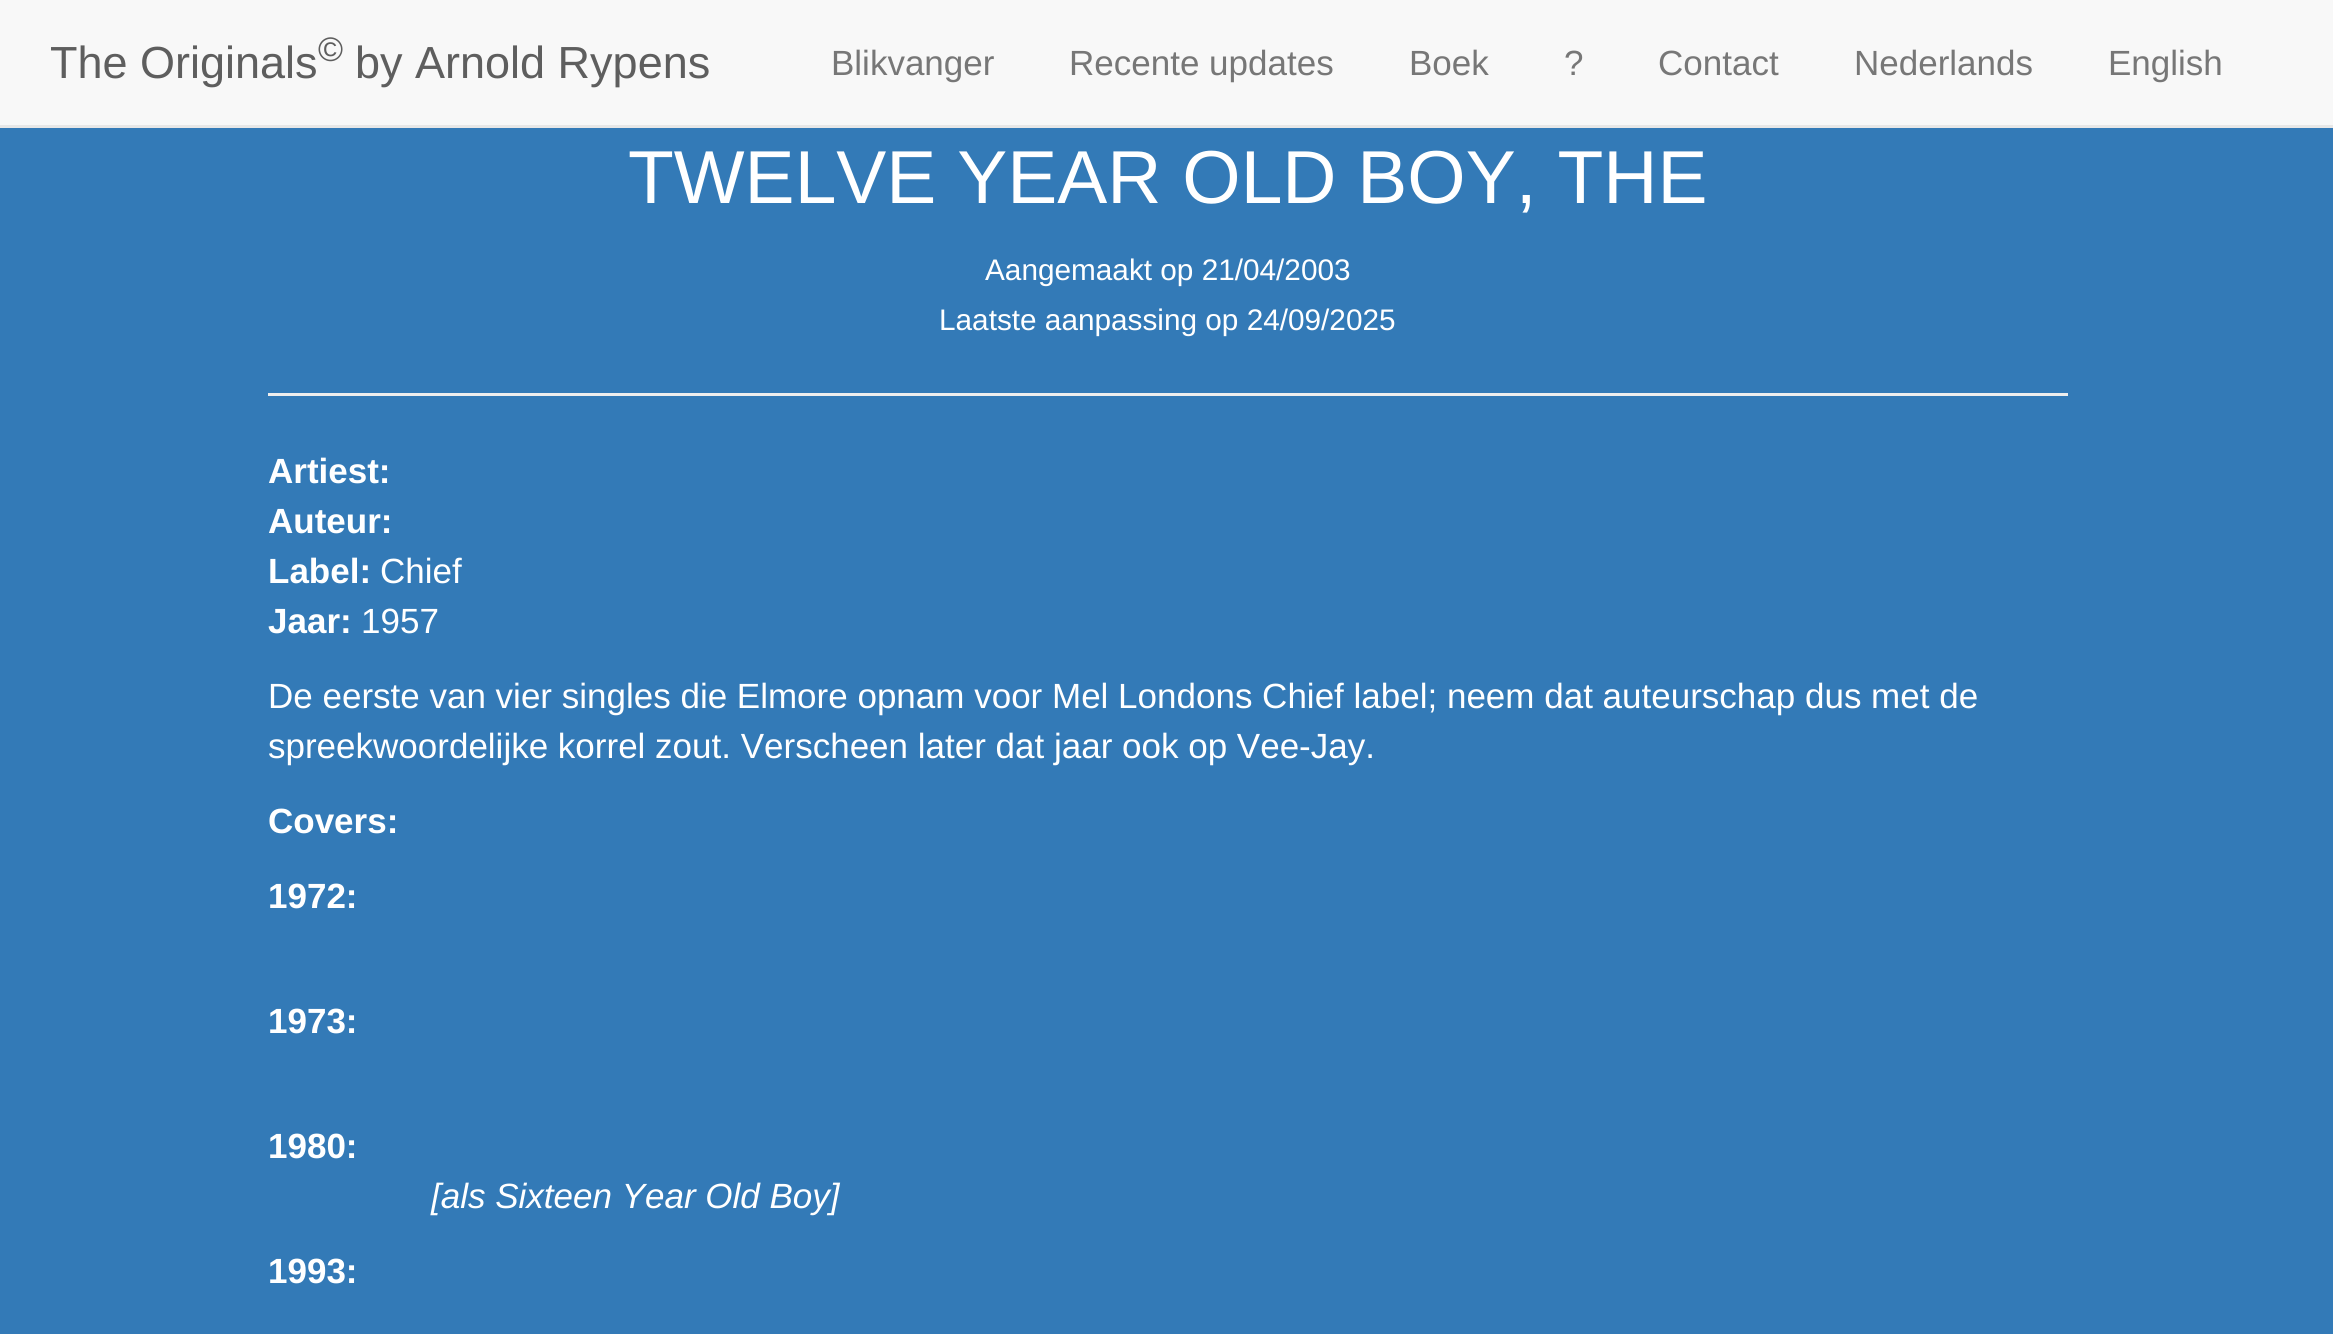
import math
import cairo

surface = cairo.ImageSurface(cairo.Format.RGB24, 2333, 1334)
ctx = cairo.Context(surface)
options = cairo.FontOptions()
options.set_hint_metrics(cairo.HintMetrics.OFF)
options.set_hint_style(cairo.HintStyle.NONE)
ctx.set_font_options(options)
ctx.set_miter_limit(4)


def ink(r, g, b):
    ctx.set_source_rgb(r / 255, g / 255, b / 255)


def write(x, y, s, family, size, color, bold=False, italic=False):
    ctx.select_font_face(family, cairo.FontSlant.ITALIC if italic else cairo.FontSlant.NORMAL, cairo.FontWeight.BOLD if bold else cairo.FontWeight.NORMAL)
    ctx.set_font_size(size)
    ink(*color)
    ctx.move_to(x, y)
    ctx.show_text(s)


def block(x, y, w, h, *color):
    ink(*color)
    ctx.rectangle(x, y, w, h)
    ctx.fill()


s1 = dict(family="Liberation Sans", size=45, color=(94, 94, 94))
s2 = dict(family="Liberation Sans", size=34, color=(94, 94, 94))
s3 = dict(family="Liberation Sans", size=35, color=(119, 119, 119))
s4 = dict(family="Liberation Sans", size=75, color=(255, 255, 255))
s5 = dict(family="Liberation Sans", size=29.75, color=(255, 255, 255))
s6 = dict(family="Liberation Sans", size=35, color=(255, 255, 255), bold=True)
s7 = dict(family="Liberation Sans", size=35, color=(255, 255, 255))
s8 = dict(family="Liberation Sans", size=35, color=(255, 255, 255), italic=True)

ink(51, 122, 183)
ctx.paint()
block(0, 0, 2333, 125, 248, 248, 248)
block(0, 125, 2333, 3, 231, 231, 231)
write(50, 78, "The Originals", **s1)
write(318, 61, "©", **s2)
write(355, 78, "by Arnold Rypens", **s1)
write(831, 75, "Blikvanger", **s3)
write(1069, 75, "Recente updates", **s3)
write(1409, 75, "Boek", **s3)
write(1564, 75, "?", **s3)
write(1658, 75, "Contact", **s3)
write(1854, 75, "Nederlands", **s3)
write(2108, 75, "English", **s3)
write(628, 203, "TWELVE YEAR OLD BOY, THE", **s4)
write(985, 280, "Aangemaakt op 21/04/2003", **s5)
write(939, 330, "Laatste aanpassing op 24/09/2025", **s5)
block(268, 393, 1800, 3, 238, 238, 238)
write(268, 483, "Artiest:", **s6)
write(268, 533, "Auteur:", **s6)
write(268, 583, "Label:", **s6)
write(380, 583, "Chief", **s7)
write(268, 633, "Jaar:", **s6)
write(361, 633, "1957", **s7)
write(268, 708, "De eerste van vier singles die Elmore opnam voor Mel Londons Chief label; neem dat auteurschap dus met de", **s7)
write(268, 758, "spreekwoordelijke korrel zout. Verscheen later dat jaar ook op Vee-Jay.", **s7)
write(268, 833, "Covers:", **s6)
write(268, 908, "1972:", **s6)
write(268, 1033, "1973:", **s6)
write(268, 1158, "1980:", **s6)
write(431, 1208, "[als Sixteen Year Old Boy]", **s8)
write(268, 1283, "1993:", **s6)
surface.write_to_png("screenshot.png")
